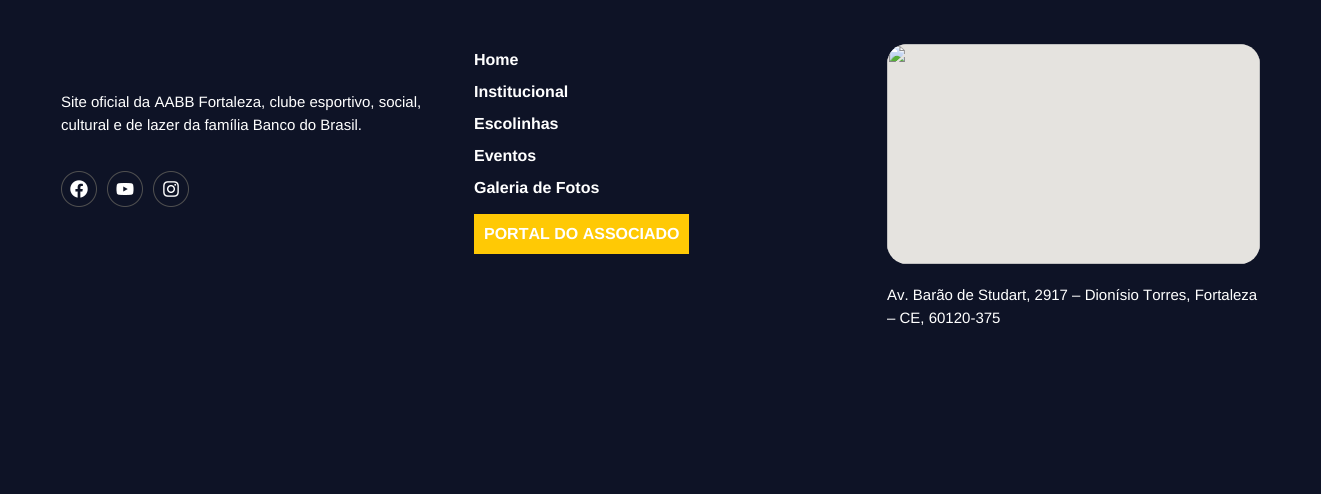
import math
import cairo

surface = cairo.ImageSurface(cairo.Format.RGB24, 1321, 494)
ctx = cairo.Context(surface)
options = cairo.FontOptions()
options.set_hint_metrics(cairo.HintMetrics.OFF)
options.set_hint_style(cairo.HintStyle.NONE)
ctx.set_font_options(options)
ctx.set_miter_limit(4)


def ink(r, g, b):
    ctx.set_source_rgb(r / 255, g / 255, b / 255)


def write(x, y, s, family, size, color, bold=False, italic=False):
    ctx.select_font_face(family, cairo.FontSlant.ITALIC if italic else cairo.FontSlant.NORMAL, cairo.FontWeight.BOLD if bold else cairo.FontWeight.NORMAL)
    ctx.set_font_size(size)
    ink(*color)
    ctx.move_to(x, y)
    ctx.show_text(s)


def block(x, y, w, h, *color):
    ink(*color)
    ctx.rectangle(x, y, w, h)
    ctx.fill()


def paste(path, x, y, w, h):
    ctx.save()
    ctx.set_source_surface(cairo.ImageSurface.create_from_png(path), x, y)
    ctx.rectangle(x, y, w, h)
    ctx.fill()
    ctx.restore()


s1 = dict(family="Liberation Sans", size=15, color=(255, 255, 255))
s2 = dict(family="Liberation Sans", size=16, color=(255, 255, 255), bold=True)

ink(14, 19, 38)
ctx.paint()
write(61, 107, "Site oficial da AABB Fortaleza, clube esportivo, social,", **s1)
write(61, 130, "cultural e de lazer da família Banco do Brasil.", **s1)
ctx.new_path()
ctx.arc(79, 189, 17.5, 0, 2 * math.pi)
ink(80, 80, 80)
ctx.set_line_width(1)
ctx.stroke()
paste("pic1.png", 70, 180, 18, 18)
ctx.arc(125, 189, 17.5, 0, 2 * math.pi)
ctx.stroke()
paste("pic2.png", 116, 183, 18, 12)
ctx.arc(171, 189, 17.5, 0, 2 * math.pi)
ctx.stroke()
paste("pic3.png", 163, 181, 16, 16)
write(474, 65, "Home", **s2)
write(474, 97, "Institucional", **s2)
write(474, 129, "Escolinhas", **s2)
write(474, 161, "Eventos", **s2)
write(474, 193, "Galeria de Fotos", **s2)
block(474, 214, 215, 40, 255, 201, 5)
write(484, 239, "PORTAL DO ASSOCIADO", **s2)
paste("pic4.png", 887, 44, 373, 220)
write(887, 300, "Av. Barão de Studart, 2917 – Dionísio Torres, Fortaleza", **s1)
write(887, 323, "– CE, 60120-375", **s1)
surface.write_to_png("screenshot.png")
